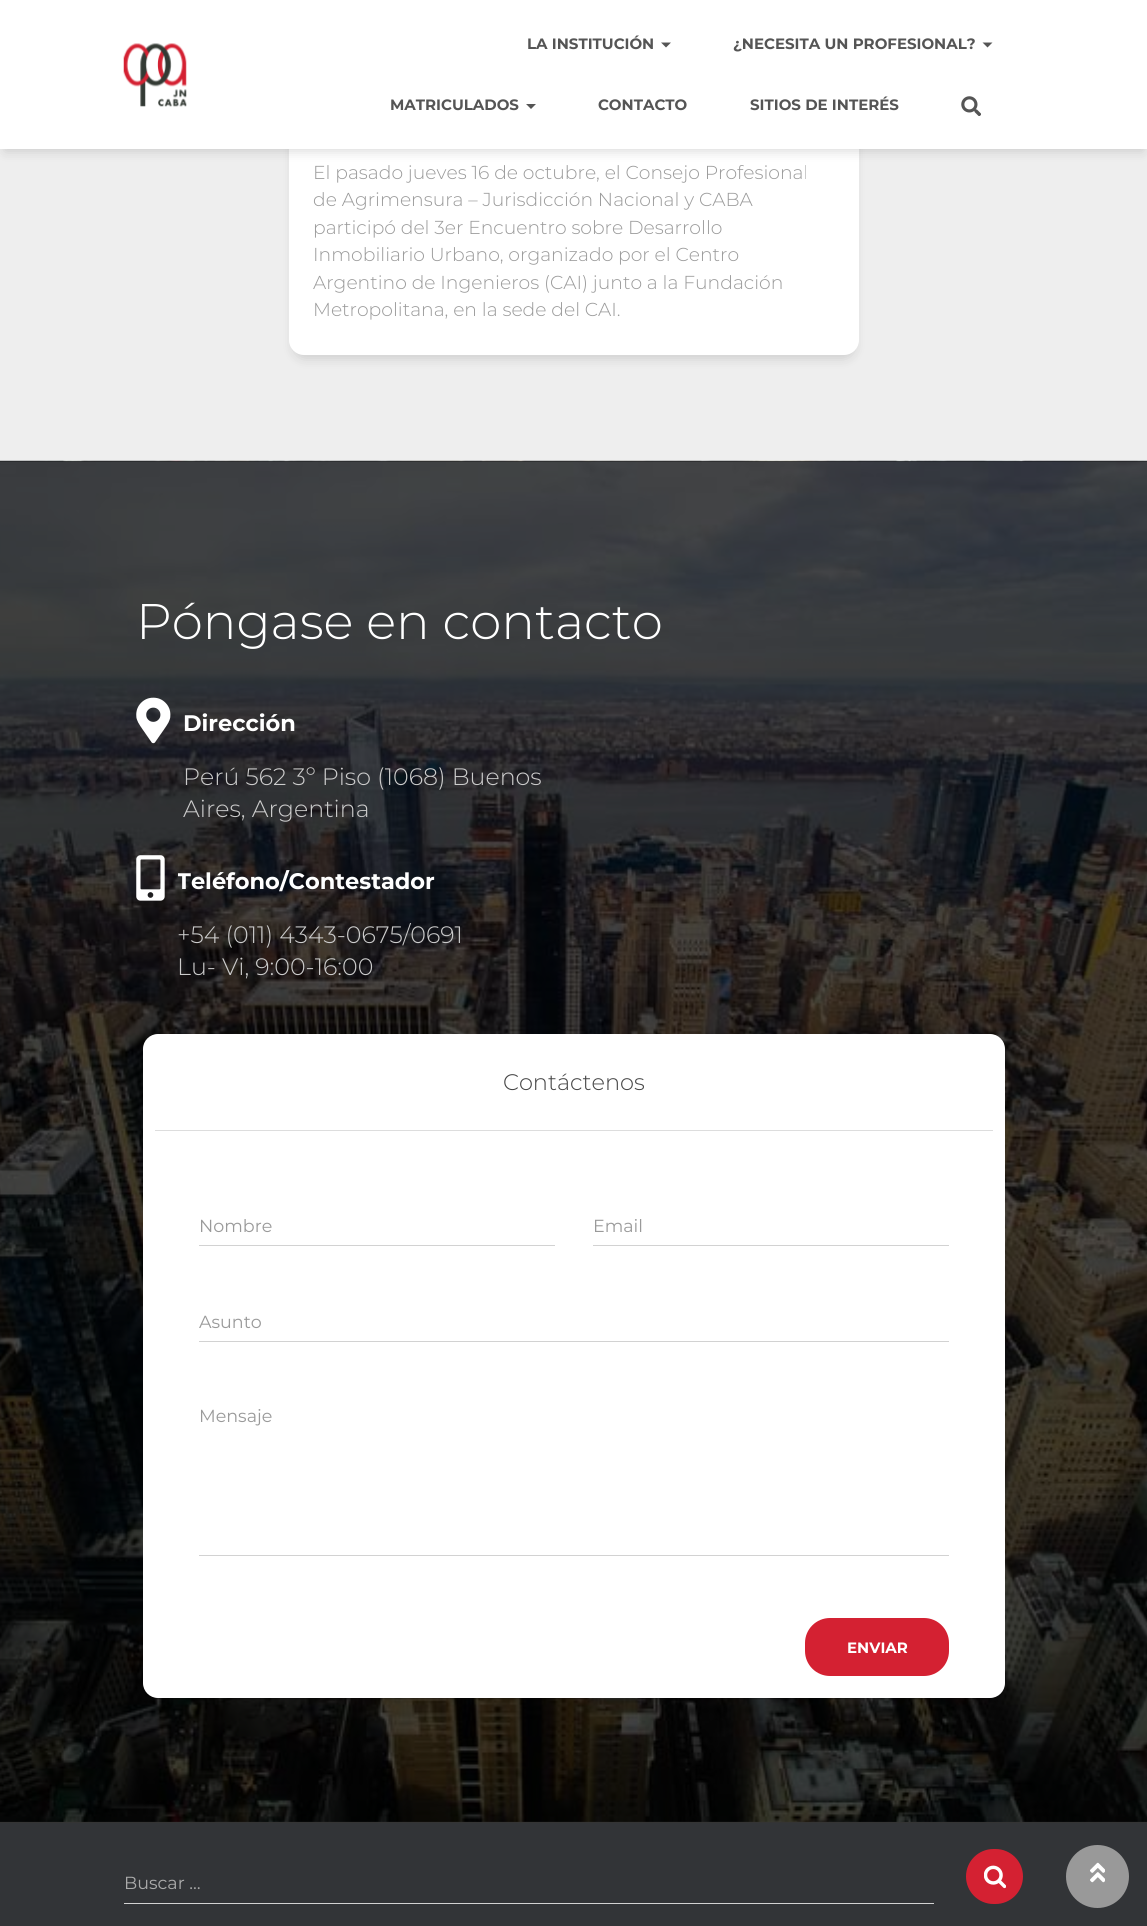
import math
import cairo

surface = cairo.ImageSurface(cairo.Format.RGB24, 1147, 1926)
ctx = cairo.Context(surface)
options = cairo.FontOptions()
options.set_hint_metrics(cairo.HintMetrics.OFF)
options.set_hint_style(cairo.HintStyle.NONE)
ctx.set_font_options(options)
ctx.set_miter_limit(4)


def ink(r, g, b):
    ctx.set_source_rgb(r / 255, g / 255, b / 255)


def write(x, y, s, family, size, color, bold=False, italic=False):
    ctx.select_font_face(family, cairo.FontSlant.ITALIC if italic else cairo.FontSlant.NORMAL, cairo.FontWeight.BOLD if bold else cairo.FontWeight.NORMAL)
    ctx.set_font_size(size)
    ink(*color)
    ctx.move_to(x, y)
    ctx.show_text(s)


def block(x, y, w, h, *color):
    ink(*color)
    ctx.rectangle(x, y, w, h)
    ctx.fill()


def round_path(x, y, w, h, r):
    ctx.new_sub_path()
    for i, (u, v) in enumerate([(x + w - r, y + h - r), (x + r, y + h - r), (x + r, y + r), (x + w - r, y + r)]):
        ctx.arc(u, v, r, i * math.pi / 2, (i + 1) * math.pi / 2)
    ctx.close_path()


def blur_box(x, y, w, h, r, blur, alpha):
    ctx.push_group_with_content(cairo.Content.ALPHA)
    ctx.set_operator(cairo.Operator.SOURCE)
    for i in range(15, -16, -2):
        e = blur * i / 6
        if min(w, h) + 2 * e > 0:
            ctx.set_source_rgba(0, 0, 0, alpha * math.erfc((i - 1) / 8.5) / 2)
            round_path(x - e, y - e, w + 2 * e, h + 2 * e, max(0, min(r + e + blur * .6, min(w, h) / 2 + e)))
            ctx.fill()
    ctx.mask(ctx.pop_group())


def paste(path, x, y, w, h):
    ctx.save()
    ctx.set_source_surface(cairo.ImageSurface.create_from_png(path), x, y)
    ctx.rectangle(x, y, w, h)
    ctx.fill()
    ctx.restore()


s1 = dict(family="Montserrat", size=15, color=(85, 85, 85), bold=True)
s2 = dict(family="Montserrat Light", size=18.75, color=(154, 154, 154))
s3 = dict(family="Montserrat Light", size=50, color=(255, 255, 255))
s4 = dict(family="Montserrat", size=22.5, color=(255, 255, 255), bold=True)
s5 = dict(family="Montserrat Light", size=23.75, color=(204, 204, 204))
s6 = dict(family="Montserrat Light", size=22.5, color=(68, 68, 68))
s7 = dict(family="Montserrat", size=17.5, color=(154, 154, 154))
s8 = dict(family="Montserrat", size=15, color=(255, 255, 255), bold=True)
s9 = dict(family="Montserrat", size=17.5, color=(170, 170, 170))

ink(50, 52, 55)
ctx.paint()
block(0, 149, 1147, 312, 238, 238, 238)
ink(0, 0, 0)
blur_box(294, -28, 560, 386, 10, 6, 0.15)
ink(255, 255, 255)
round_path(289, -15, 570, 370, 15)
ctx.fill()
ink(0, 0, 0)
blur_box(5, 13, 1138, 138, 0, 6, 0.15)
block(0, 0, 1147, 149, 255, 255, 255)
paste("pic1.png", 123, 43, 64, 64)
write(527, 49, "LA INSTITUCIÓN", **s1)
ctx.new_path()
ctx.move_to(661, 42.5)
ctx.line_to(671, 42.5)
ctx.line_to(666, 47.5)
ctx.close_path()
ctx.fill()
write(733, 49, "¿NECESITA UN PROFESIONAL?", **s1)
ctx.new_path()
ctx.move_to(982.5, 42.5)
ctx.line_to(992.5, 42.5)
ctx.line_to(987.5, 47.5)
ctx.close_path()
ctx.fill()
write(390, 110, "MATRICULADOS", **s1)
ctx.new_path()
ctx.move_to(526, 104)
ctx.line_to(536, 104)
ctx.line_to(531, 109)
ctx.close_path()
ctx.fill()
write(598, 110, "CONTACTO", **s1)
write(750, 110, "SITIOS DE INTERÉS", **s1)
paste("pic2.png", 961, 96, 20, 20)
write(313, 179, "El pasado jueves 16 de octubre, el Consejo Profesional", **s2)
write(313, 206, "de Agrimensura – Jurisdicción Nacional y CABA", **s2)
write(313, 234, "participó del 3er Encuentro sobre Desarrollo", **s2)
write(313, 261, "Inmobiliario Urbano, organizado por el Centro", **s2)
write(313, 289, "Argentino de Ingenieros (CAI) junto a la Fundación", **s2)
write(313, 316, "Metropolitana, en la sede del CAI.", **s2)
block(0, 1822, 1147, 1, 52, 52, 52)
paste("pic3.png", 0, 460, 1147, 1362)
write(136, 639, "Póngase en contacto", **s3)
paste("pic4.png", 136, 697, 35, 47)
write(183, 731, "Dirección", **s4)
write(183, 785, "Perú 562 3º Piso (1068) Buenos", **s5)
write(183, 817, "Aires, Argentina", **s5)
paste("pic5.png", 136, 855, 29, 46)
ctx.save()
ctx.rectangle(178, 839, 408, 157)
ctx.clip()
write(177, 889, "Teléfono/Contestador", **s4)
ctx.restore()
write(177, 943, "+54 (011) 4343-0675/0691", **s5)
write(177, 975, "Lu- Vi, 9:00-16:00", **s5)
ink(0, 0, 0)
blur_box(145, 1040, 858, 659, 13, 0.5, 0.2)
ink(255, 255, 255)
round_path(143, 1034, 862, 664, 15)
ctx.fill()
block(155, 1130, 838, 1, 221, 221, 221)
write(503, 1090, "Contáctenos", **s6)
block(199, 1245, 356, 1, 210, 210, 210)
write(199, 1232, "Nombre", **s7)
block(593, 1245, 356, 1, 210, 210, 210)
write(593, 1232, "Email", **s7)
block(199, 1341, 750, 1, 210, 210, 210)
write(199, 1328, "Asunto", **s7)
block(199, 1555, 750, 1, 210, 210, 210)
write(199, 1422, "Mensaje", **s7)
ink(212, 33, 50)
round_path(805, 1618, 144, 58, 25)
ctx.fill()
write(847, 1653, "ENVIAR", **s8)
write(124, 1889, "Buscar …", **s9)
block(124, 1903, 810, 1, 210, 210, 210)
ink(212, 33, 50)
round_path(966, 1849, 57, 55, 27.5)
ctx.fill()
paste("pic6.png", 984, 1865, 22, 24)
ink(153, 153, 153)
ctx.arc(1097.5, 1876.5, 31.5, 0, 2 * math.pi)
ctx.fill()
paste("pic7.png", 1090, 1862, 15, 21)
surface.write_to_png("screenshot.png")
